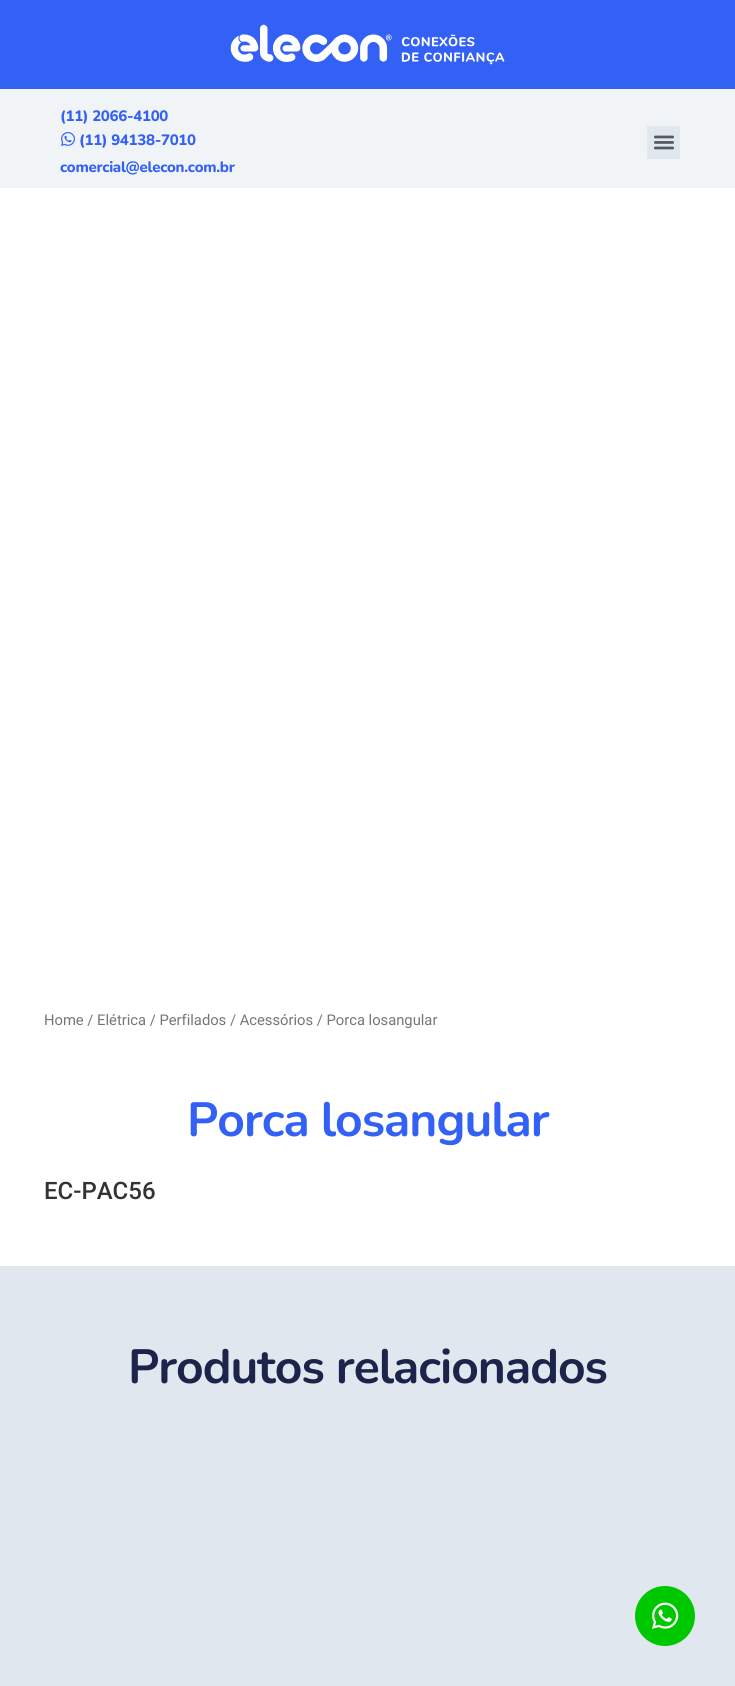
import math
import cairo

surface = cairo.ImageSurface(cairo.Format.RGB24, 735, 1686)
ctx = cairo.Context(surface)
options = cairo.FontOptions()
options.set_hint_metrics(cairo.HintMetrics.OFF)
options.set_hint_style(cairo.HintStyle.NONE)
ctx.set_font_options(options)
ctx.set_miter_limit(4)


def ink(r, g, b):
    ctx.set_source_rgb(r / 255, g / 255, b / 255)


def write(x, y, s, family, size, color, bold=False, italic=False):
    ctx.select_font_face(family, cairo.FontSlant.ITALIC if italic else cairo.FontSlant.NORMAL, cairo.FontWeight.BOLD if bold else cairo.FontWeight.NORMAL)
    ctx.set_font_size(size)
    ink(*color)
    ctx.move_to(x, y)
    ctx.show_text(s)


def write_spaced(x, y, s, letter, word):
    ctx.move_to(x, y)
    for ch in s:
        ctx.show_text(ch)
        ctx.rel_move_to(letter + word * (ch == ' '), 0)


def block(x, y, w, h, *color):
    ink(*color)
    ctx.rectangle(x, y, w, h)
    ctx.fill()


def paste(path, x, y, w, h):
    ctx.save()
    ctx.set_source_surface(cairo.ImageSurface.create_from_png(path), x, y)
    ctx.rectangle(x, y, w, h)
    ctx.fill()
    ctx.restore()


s1 = dict(family="Roboto", size=14.75, color=(118, 118, 118))
s2 = dict(family="Roboto Medium", size=24, color=(51, 51, 51))

ink(255, 255, 255)
ctx.paint()
block(0, 0, 735, 89, 52, 97, 245)
paste("pic1.png", 230, 24, 275, 41)
block(0, 89, 735, 99, 241, 244, 247)
ctx.select_font_face("Nunito ExtraBold")
ctx.set_font_size(15)
ink(52, 97, 245)
write_spaced(60, 121, "(11) 2066-4100", -0.3, 0)
paste("pic2.png", 61, 132, 14, 14)
write_spaced(79, 145, "(11) 94138-7010", -0.3, 0)
write_spaced(60, 172, "comercial@elecon.com.br", -0.3, 0)
block(647, 126, 33, 33, 224, 231, 238)
paste("pic3.png", 654, 135, 20, 15)
write(44, 1025, "Home / Elétrica / Perfilados / Acessórios / Porca losangular", **s1)
ctx.select_font_face("Nunito", cairo.FontSlant.NORMAL, cairo.FontWeight.BOLD)
ctx.set_font_size(48)
ink(52, 97, 245)
write_spaced(187, 1136, "Porca losangular", -1, 0)
write(44, 1199, "EC-PAC56", **s2)
block(0, 1266, 735, 420, 224, 231, 238)
ctx.select_font_face("Nunito", cairo.FontSlant.NORMAL, cairo.FontWeight.BOLD)
ctx.set_font_size(48)
ink(28, 36, 75)
write_spaced(128, 1383, "Produtos relacionados", -1, 0)
ink(0, 200, 0)
ctx.new_path()
ctx.arc(665, 1616, 30, 0, 2 * math.pi)
ctx.fill()
paste("pic4.png", 652, 1602, 27, 27)
surface.write_to_png("screenshot.png")
